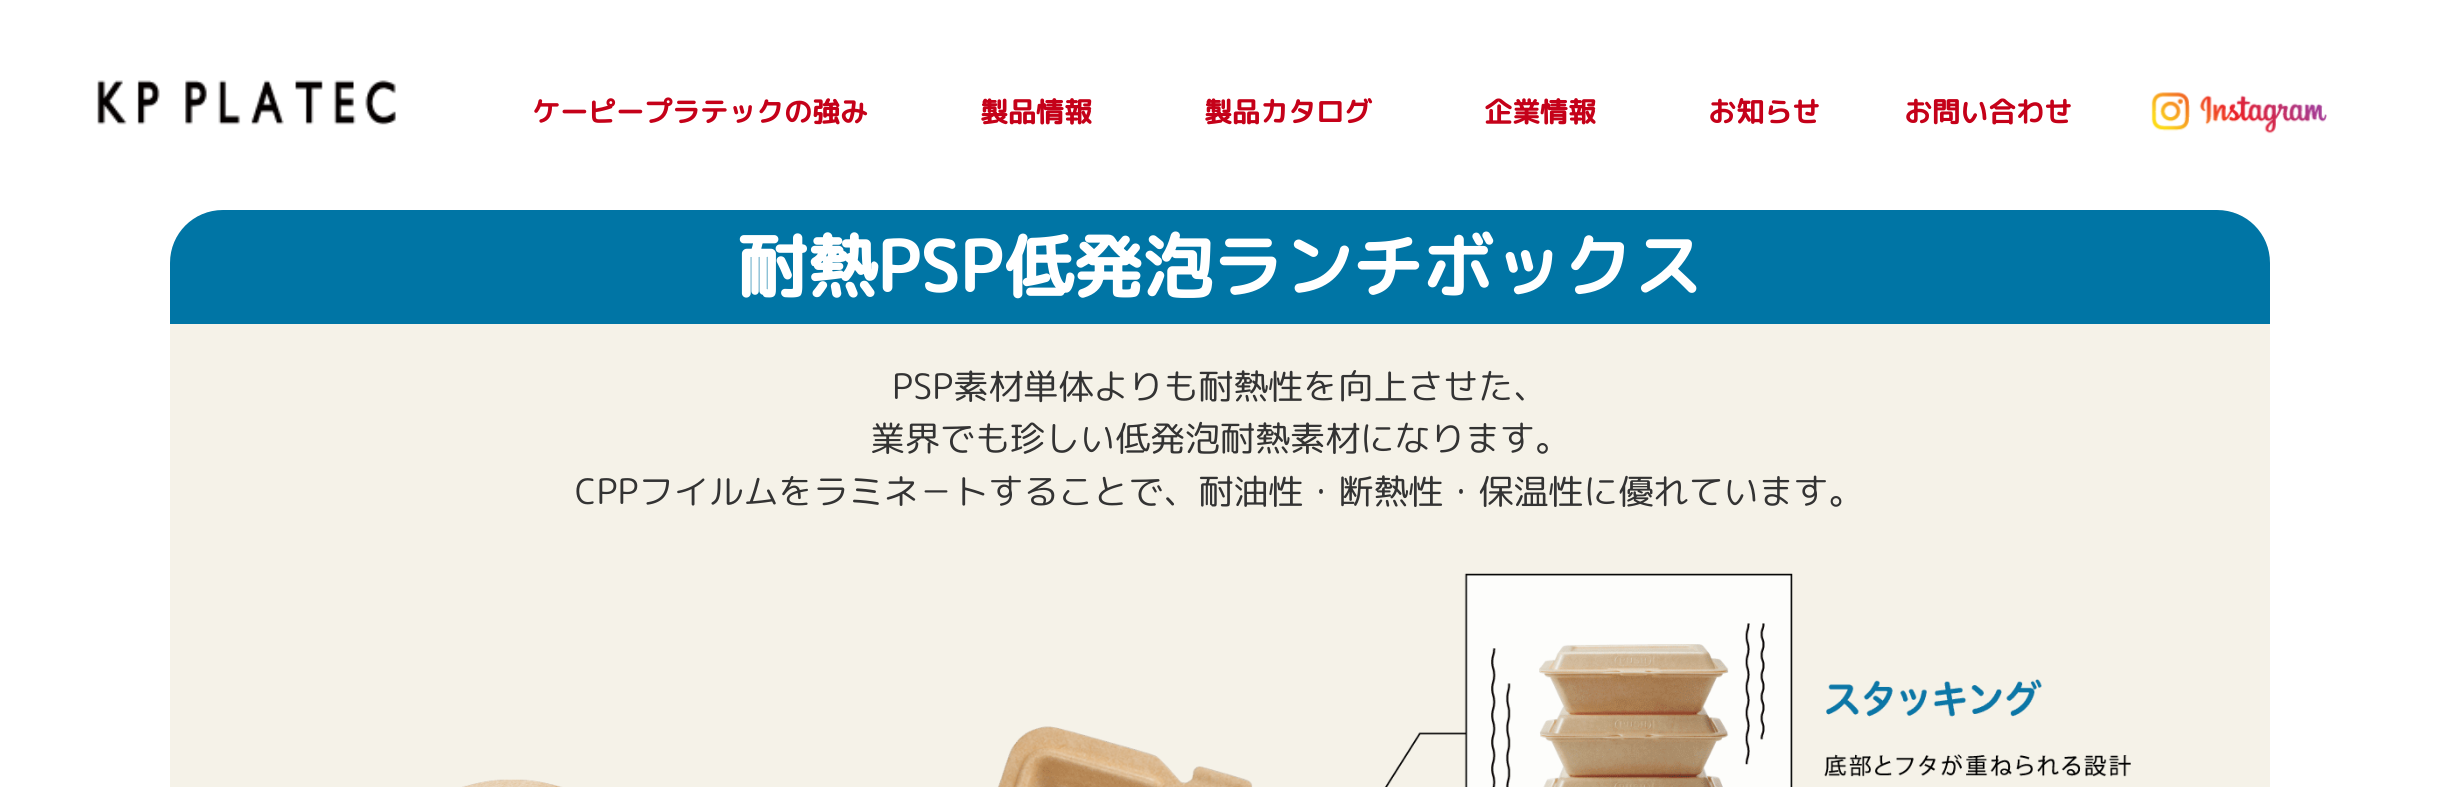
import math
import cairo

surface = cairo.ImageSurface(cairo.Format.RGB24, 2438, 787)
ctx = cairo.Context(surface)
options = cairo.FontOptions()
options.set_hint_metrics(cairo.HintMetrics.OFF)
options.set_hint_style(cairo.HintStyle.NONE)
ctx.set_font_options(options)
ctx.set_miter_limit(4)


def ink(r, g, b):
    ctx.set_source_rgb(r / 255, g / 255, b / 255)


def write(x, y, s, family, size, color, bold=False, italic=False):
    ctx.select_font_face(family, cairo.FontSlant.ITALIC if italic else cairo.FontSlant.NORMAL, cairo.FontWeight.BOLD if bold else cairo.FontWeight.NORMAL)
    ctx.set_font_size(size)
    ink(*color)
    ctx.move_to(x, y)
    ctx.show_text(s)


def round_path(x, y, w, h, r):
    ctx.new_sub_path()
    for i, (u, v) in enumerate([(x + w - r, y + h - r), (x + r, y + h - r), (x + r, y + r), (x + w - r, y + r)]):
        ctx.arc(u, v, r, i * math.pi / 2, (i + 1) * math.pi / 2)
    ctx.close_path()


def paste(path, x, y, w, h):
    ctx.save()
    ctx.set_source_surface(cairo.ImageSurface.create_from_png(path), x, y)
    ctx.rectangle(x, y, w, h)
    ctx.fill()
    ctx.restore()


s1 = dict(family="Rounded Mplus 1c", size=28, color=(197, 1, 25), bold=True)
s2 = dict(family="Rounded Mplus 1c", size=70, color=(255, 255, 255), bold=True)
s3 = dict(family="Rounded Mplus 1c", size=35, color=(51, 51, 51))

ink(255, 255, 255)
ctx.paint()
paste("pic1.png", 97, 80, 299, 45)
write(532, 122, "ケーピープラテックの強み", **s1)
write(980, 122, "製品情報", **s1)
write(1204, 122, "製品カタログ", **s1)
write(1484, 122, "企業情報", **s1)
write(1708, 122, "お知らせ", **s1)
write(1904, 122, "お問い合わせ", **s1)
paste("pic2.png", 2151, 92, 176, 42)
ink(245, 242, 232)
round_path(170, 210, 2100, 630, 53)
ctx.fill()
ink(0, 117, 165)
ctx.new_path()
ctx.move_to(223, 210)
ctx.line_to(2217, 210)
ctx.curve_to(2246.5, 210, 2270, 233.5, 2270, 263)
ctx.line_to(2270, 324)
ctx.line_to(170, 324)
ctx.line_to(170, 263)
ctx.curve_to(170, 233.5, 193.5, 210, 223, 210)
ctx.close_path()
ctx.fill()
write(737, 292, "耐熱PSP低発泡ランチボックス", **s2)
write(892, 399, "PSP素材単体よりも耐熱性を向上させた、", **s3)
write(870, 451, "業界でも珍しい低発泡耐熱素材になります。", **s3)
write(575, 504, "CPPフイルムをラミネ－トすることで、耐油性・断熱性・保温性に優れています。", **s3)
paste("pic3.png", 462, 573, 1669, 214)
surface.write_to_png("screenshot.png")
